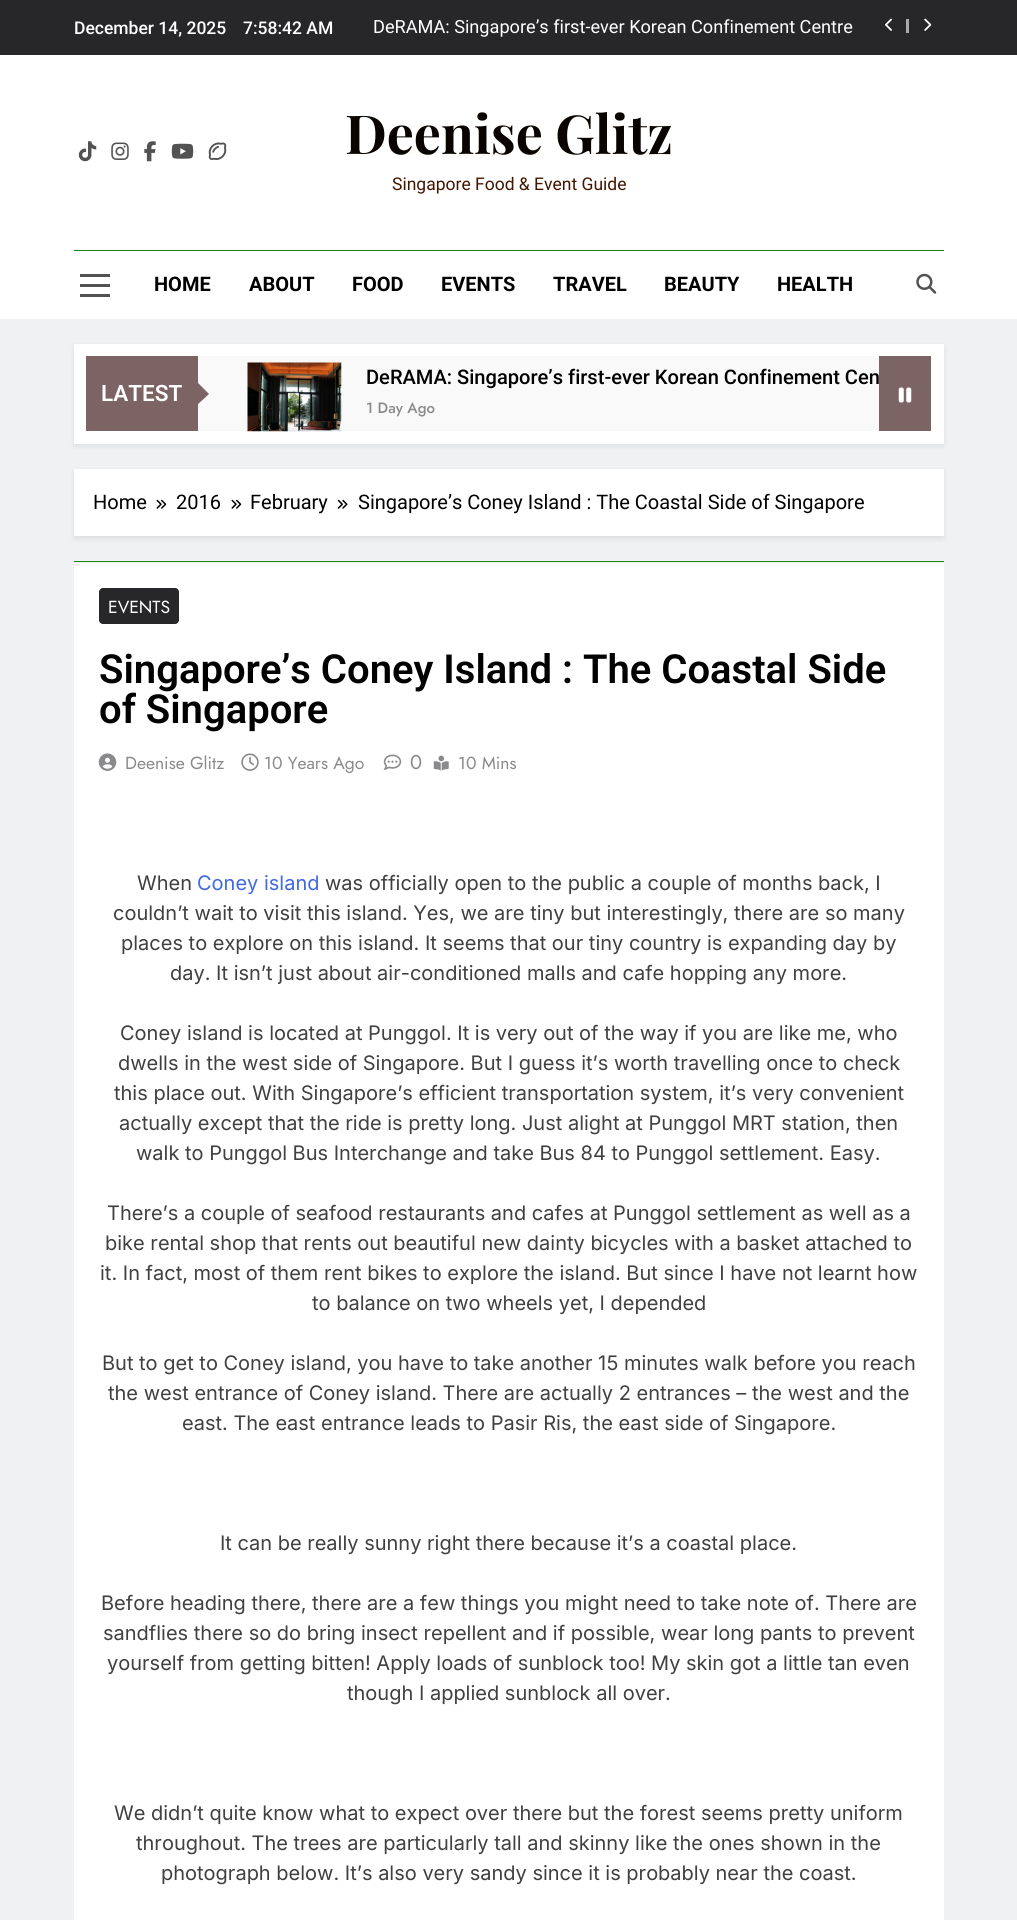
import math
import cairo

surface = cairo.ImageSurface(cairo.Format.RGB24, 1017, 1920)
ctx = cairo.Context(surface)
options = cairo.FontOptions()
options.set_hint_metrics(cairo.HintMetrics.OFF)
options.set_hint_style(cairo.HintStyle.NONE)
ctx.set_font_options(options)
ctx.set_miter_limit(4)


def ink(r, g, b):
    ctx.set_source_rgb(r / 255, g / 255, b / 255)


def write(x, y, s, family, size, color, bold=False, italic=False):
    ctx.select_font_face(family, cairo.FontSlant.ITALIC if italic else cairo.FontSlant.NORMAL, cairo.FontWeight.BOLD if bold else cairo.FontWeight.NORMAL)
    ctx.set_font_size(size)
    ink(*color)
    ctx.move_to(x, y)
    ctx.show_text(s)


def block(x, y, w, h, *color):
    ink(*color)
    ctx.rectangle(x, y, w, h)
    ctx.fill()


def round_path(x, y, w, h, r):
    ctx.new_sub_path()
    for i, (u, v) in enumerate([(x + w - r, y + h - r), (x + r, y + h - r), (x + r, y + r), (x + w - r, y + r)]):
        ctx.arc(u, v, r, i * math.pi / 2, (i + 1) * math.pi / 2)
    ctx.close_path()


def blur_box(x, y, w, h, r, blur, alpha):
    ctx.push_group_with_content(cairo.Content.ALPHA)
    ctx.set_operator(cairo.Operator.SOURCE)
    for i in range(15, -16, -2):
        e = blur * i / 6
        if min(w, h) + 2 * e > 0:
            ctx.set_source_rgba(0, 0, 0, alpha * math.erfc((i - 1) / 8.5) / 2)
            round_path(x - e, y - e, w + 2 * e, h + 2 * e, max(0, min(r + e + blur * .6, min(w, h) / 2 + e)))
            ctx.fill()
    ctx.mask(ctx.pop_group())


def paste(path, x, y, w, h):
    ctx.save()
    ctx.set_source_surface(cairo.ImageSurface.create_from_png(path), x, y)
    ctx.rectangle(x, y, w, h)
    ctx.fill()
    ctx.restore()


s1 = dict(family="Roboto Medium", size=17.5, color=(255, 255, 255))
s2 = dict(family="Roboto", size=18.15, color=(255, 255, 255))
s3 = dict(family="Playfair Display", size=53.75, color=(10, 4, 0), bold=True)
s4 = dict(family="Roboto", size=17.5, color=(66, 22, 0))
s5 = dict(family="Roboto", size=20, color=(0, 0, 0), bold=True)
s6 = dict(family="Roboto SemiBold", size=22.5, color=(255, 255, 255))
s7 = dict(family="Roboto Medium", size=20.1, color=(0, 0, 0))
s8 = dict(family="Jost Medium", size=15, color=(138, 138, 140))
s9 = dict(family="Roboto", size=20, color=(0, 0, 0))
s10 = dict(family="Jost", size=17.5, color=(255, 255, 255))
s11 = dict(family="Roboto SemiBold", size=40, color=(0, 0, 0))
s12 = dict(family="Jost", size=17.5, color=(138, 138, 140))
s13 = dict(family="Jost", size=20, color=(138, 138, 140))
s14 = dict(family="Inter", size=20, color=(64, 64, 64))
s15 = dict(family="Inter", size=20, color=(65, 105, 225))

ink(240, 241, 242)
ctx.paint()
block(0, 0, 1017, 55, 39, 39, 42)
write(74, 34, "December 14, 2025", **s1)
write(243, 34, "7:58:42 AM", **s1)
write(373, 33, "DeRAMA: Singapore’s first-ever Korean Confinement Centre", **s2)
paste("pic1.png", 885, 18, 7, 13)
block(906, 19, 3, 14, 169, 169, 170)
paste("pic2.png", 924, 18, 8, 13)
block(0, 55, 1017, 264, 255, 255, 255)
paste("pic3.png", 78, 141, 19, 21)
paste("pic4.png", 111, 142, 18, 18)
paste("pic5.png", 144, 141, 12, 21)
paste("pic6.png", 171, 143, 23, 16)
paste("pic7.png", 208, 142, 19, 18)
write(345, 154, "Deenise Glitz", **s3)
write(392, 190, "Singapore Food & Event Guide", **s4)
block(74, 250, 870, 1, 27, 132, 21)
block(80, 274, 30, 3, 82, 82, 82)
block(80, 284, 30, 3, 82, 82, 82)
block(80, 294, 30, 3, 82, 82, 82)
write(154, 291, "HOME", **s5)
write(249, 291, "ABOUT", **s5)
write(352, 291, "FOOD", **s5)
write(441, 291, "EVENTS", **s5)
write(553, 291, "TRAVEL", **s5)
write(664, 291, "BEAUTY", **s5)
write(777, 291, "HEALTH", **s5)
paste("pic8.png", 916, 273, 21, 21)
ink(0, 0, 0)
blur_box(74, 346, 870, 100, 0, 2.5, 0.08)
block(74, 344, 870, 100, 255, 255, 255)
block(86, 356, 112, 75, 124, 100, 100)
write(101, 401, "LATEST", **s6)
block(198, 356, 681, 75, 249, 249, 249)
ink(124, 100, 100)
ctx.new_path()
ctx.move_to(196, 406)
ctx.line_to(196, 381)
ctx.line_to(209, 394)
ctx.close_path()
ctx.fill()
paste("pic9.png", 247, 362, 95, 70)
write(366, 384, "DeRAMA: Singapore’s first-ever Korean Confinement Cen", **s7)
write(366, 413, "1 Day Ago", **s8)
block(879, 356, 52, 75, 124, 100, 100)
paste("pic10.png", 898, 387, 14, 16)
ink(0, 0, 0)
blur_box(74, 471, 870, 68, 0, 2.5, 0.08)
block(74, 469, 870, 67, 255, 255, 255)
write(93, 509, "Home", **s9)
paste("pic11.png", 156, 499, 11, 10)
write(176, 509, "2016", **s9)
paste("pic11.png", 231, 499, 11, 10)
write(250, 509, "February", **s9)
paste("pic12.png", 337, 499, 11, 10)
write(358, 509, "Singapore’s Coney Island : The Coastal Side of Singapore", **s9)
block(74, 563, 870, 1357, 255, 255, 255)
block(74, 561, 870, 1, 27, 132, 21)
ink(39, 39, 42)
round_path(99, 588, 80, 36, 4)
ctx.fill()
write(108, 613, "EVENTS", **s10)
write(99, 683, "Singapore’s Coney Island : The Coastal Side", **s11)
write(99, 723, "of Singapore", **s11)
paste("pic13.png", 98, 753, 19, 18)
write(125, 769, "Deenise Glitz", **s12)
paste("pic14.png", 241, 753, 18, 18)
write(264, 769, "10 Years Ago", **s12)
paste("pic15.png", 383, 754, 19, 16)
write(410, 769, "0", **s13)
paste("pic16.png", 433, 755, 16, 16)
write(458, 769, "10 Mins", **s12)
write(137, 890, "When", **s14)
write(197, 890, "Coney island", **s15)
write(325, 890, "was officially open to the public a couple of months back, I", **s14)
write(113, 920, "couldn’t wait to visit this island. Yes, we are tiny but interestingly, there are so many", **s14)
write(121, 950, "places to explore on this island. It seems that our tiny country is expanding day by", **s14)
write(170, 980, "day. It isn’t just about air-conditioned malls and cafe hopping any more.", **s14)
write(120, 1040, "Coney island is located at Punggol. It is very out of the way if you are like me, who", **s14)
write(118, 1070, "dwells in the west side of Singapore. But I guess it’s worth travelling once to check", **s14)
write(114, 1100, "this place out. With Singapore’s efficient transportation system, it’s very convenient", **s14)
write(119, 1130, "actually except that the ride is pretty long. Just alight at Punggol MRT station, then", **s14)
write(136, 1160, "walk to Punggol Bus Interchange and take Bus 84 to Punggol settlement. Easy.", **s14)
write(107, 1220, "There’s a couple of seafood restaurants and cafes at Punggol settlement as well as a", **s14)
write(105, 1250, "bike rental shop that rents out beautiful new dainty bicycles with a basket attached to", **s14)
write(100, 1280, "it. In fact, most of them rent bikes to explore the island. But since I have not learnt how", **s14)
write(312, 1310, "to balance on two wheels yet, I depended", **s14)
write(102, 1370, "But to get to Coney island, you have to take another 15 minutes walk before you reach", **s14)
write(108, 1400, "the west entrance of Coney island. There are actually 2 entrances – the west and the", **s14)
write(182, 1430, "east. The east entrance leads to Pasir Ris, the east side of Singapore.", **s14)
write(220, 1550, "It can be really sunny right there because it’s a coastal place.", **s14)
write(101, 1610, "Before heading there, there are a few things you might need to take note of. There are", **s14)
write(103, 1640, "sandflies there so do bring insect repellent and if possible, wear long pants to prevent", **s14)
write(107, 1670, "yourself from getting bitten! Apply loads of sunblock too! My skin got a little tan even", **s14)
write(347, 1700, "though I applied sunblock all over.", **s14)
write(114, 1820, "We didn’t quite know what to expect over there but the forest seems pretty uniform", **s14)
write(136, 1850, "throughout. The trees are particularly tall and skinny like the ones shown in the", **s14)
write(161, 1880, "photograph below. It’s also very sandy since it is probably near the coast.", **s14)
surface.write_to_png("screenshot.png")
